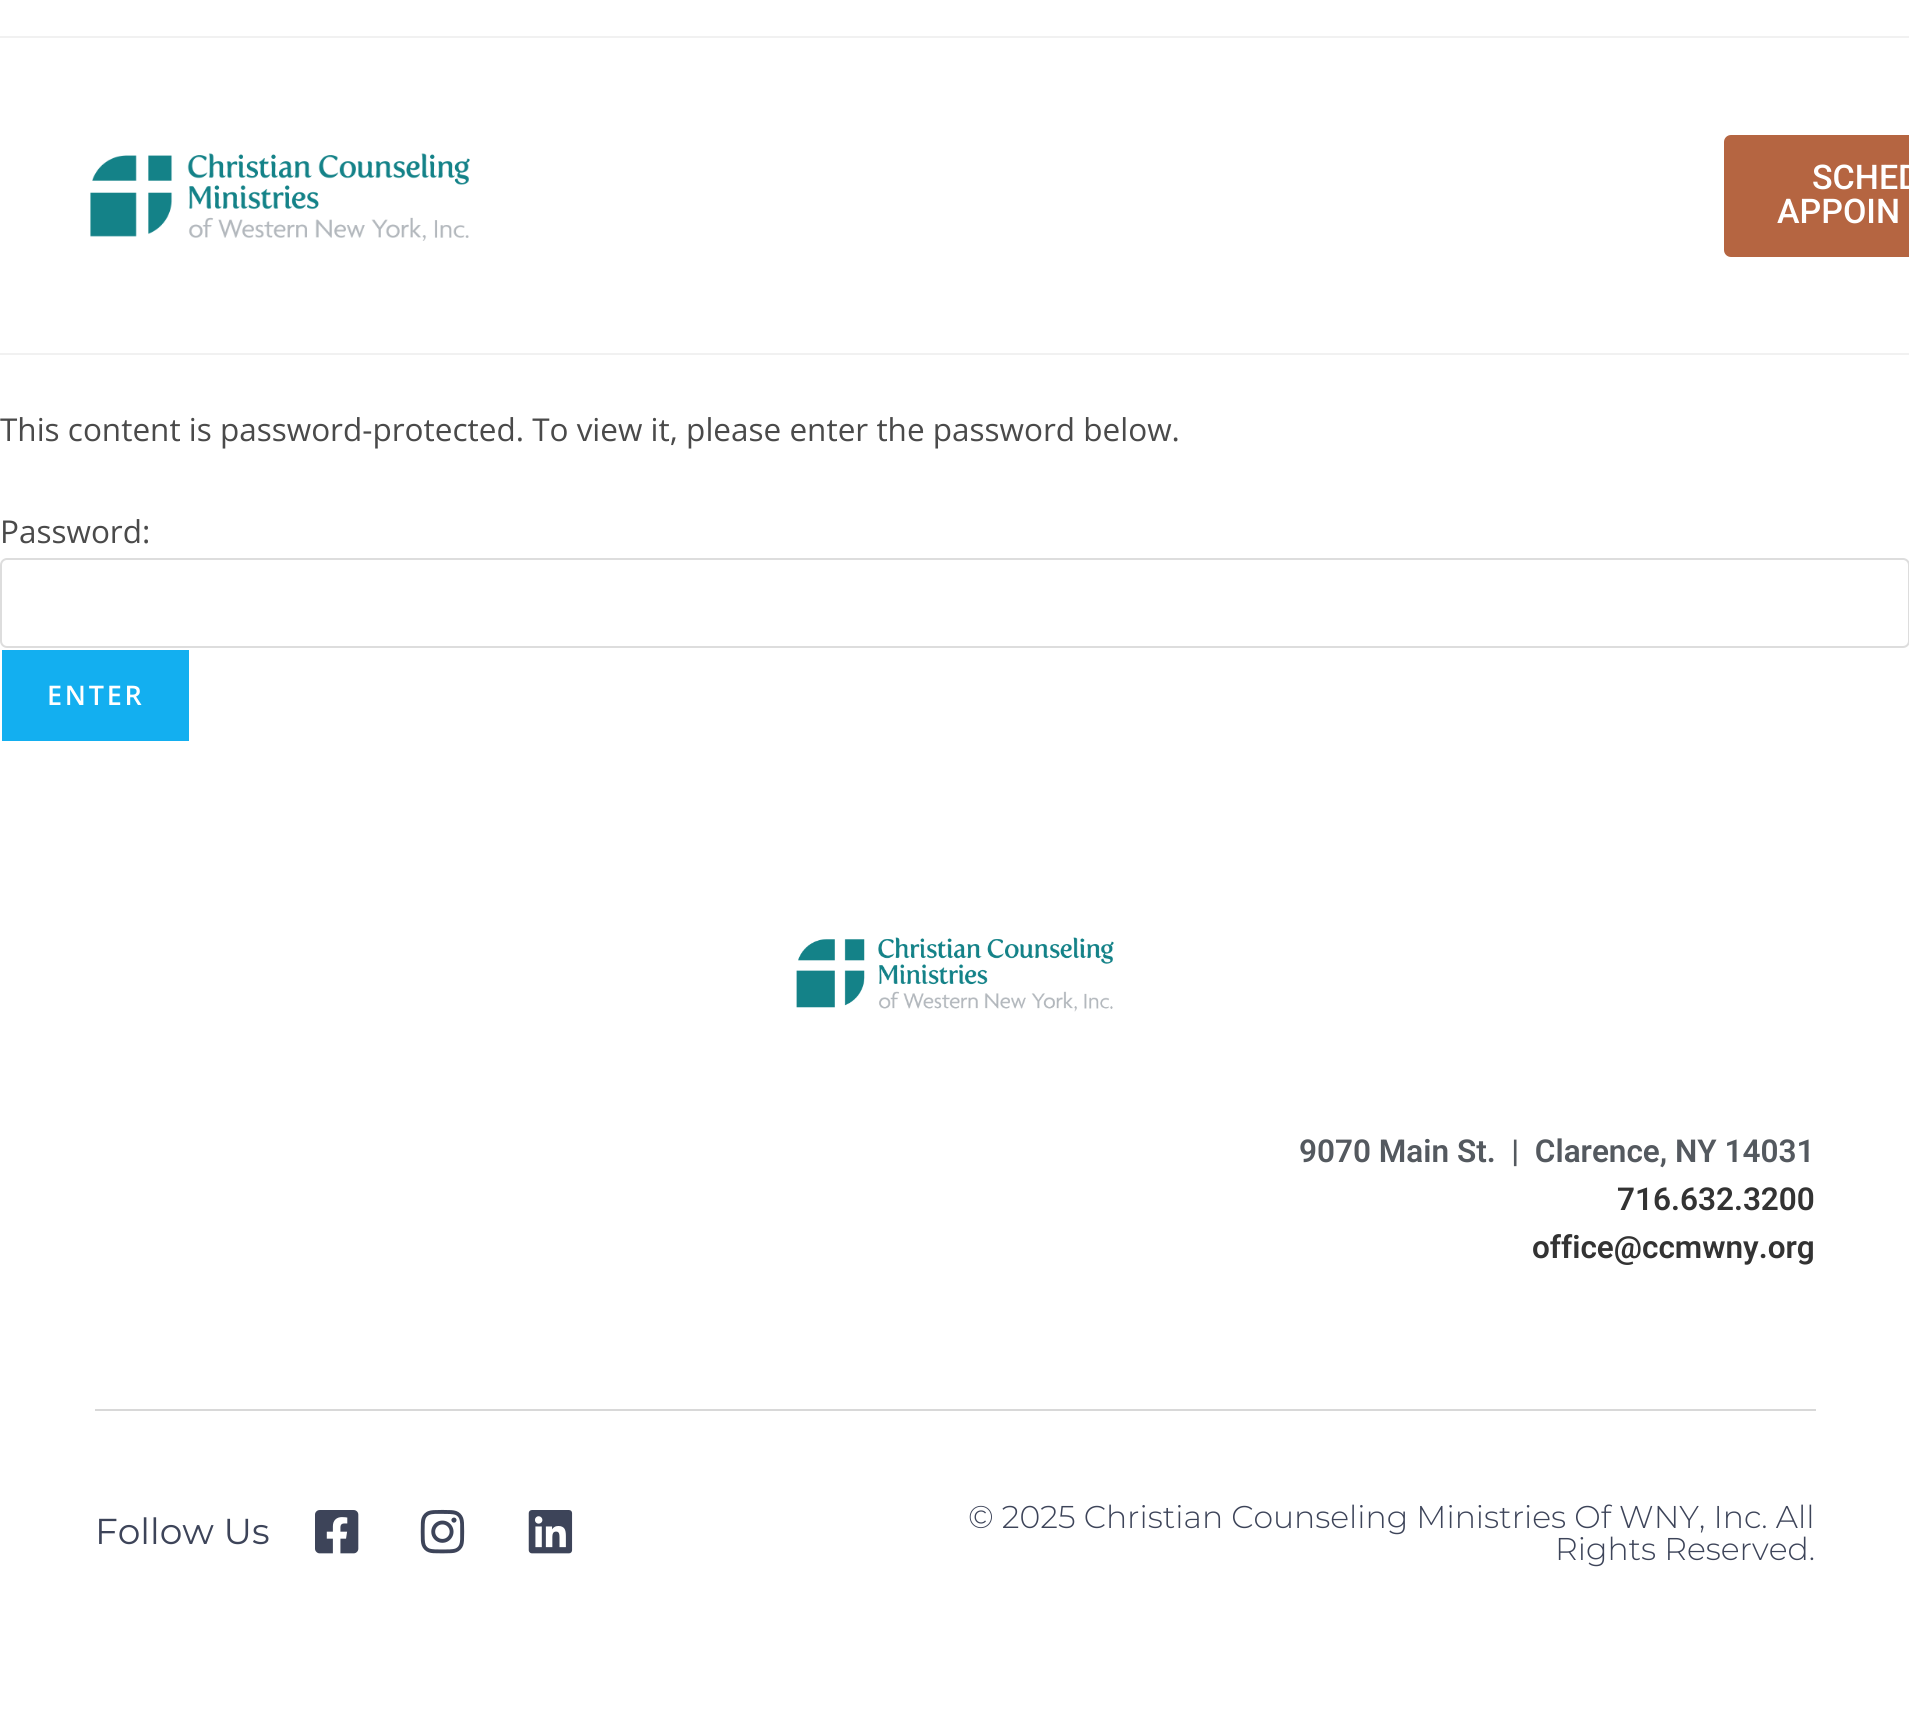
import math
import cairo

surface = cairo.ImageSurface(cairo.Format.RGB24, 1909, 1727)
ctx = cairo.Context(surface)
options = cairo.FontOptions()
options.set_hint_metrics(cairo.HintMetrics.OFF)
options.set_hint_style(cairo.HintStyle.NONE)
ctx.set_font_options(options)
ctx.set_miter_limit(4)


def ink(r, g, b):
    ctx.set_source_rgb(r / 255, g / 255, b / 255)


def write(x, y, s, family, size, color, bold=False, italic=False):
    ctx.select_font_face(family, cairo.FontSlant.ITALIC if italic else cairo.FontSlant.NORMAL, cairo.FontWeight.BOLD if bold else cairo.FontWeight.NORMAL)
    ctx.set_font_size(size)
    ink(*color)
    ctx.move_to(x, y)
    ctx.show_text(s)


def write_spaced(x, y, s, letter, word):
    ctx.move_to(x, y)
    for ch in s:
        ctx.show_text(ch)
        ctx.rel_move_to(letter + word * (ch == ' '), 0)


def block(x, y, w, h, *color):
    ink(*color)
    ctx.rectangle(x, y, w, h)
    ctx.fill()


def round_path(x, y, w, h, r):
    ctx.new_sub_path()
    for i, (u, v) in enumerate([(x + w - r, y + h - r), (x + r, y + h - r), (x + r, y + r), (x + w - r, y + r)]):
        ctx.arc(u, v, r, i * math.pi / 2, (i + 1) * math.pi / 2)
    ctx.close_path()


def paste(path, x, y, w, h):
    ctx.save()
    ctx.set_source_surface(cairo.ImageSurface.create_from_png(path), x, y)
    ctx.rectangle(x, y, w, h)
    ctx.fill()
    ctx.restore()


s1 = dict(family="Roboto Medium", size=34, color=(255, 255, 255))
s2 = dict(family="Open Sans", size=31.5, color=(74, 74, 74))
s3 = dict(family="Roboto SemiBold", size=31.5, color=(84, 89, 95))
s4 = dict(family="Roboto SemiBold", size=31.5, color=(51, 51, 51))
s5 = dict(family="Montserrat", size=36, color=(61, 68, 89))
s6 = dict(family="Montserrat Light", size=31.5, color=(61, 68, 89))

ink(255, 255, 255)
ctx.paint()
block(0, 36, 1909, 2, 241, 241, 241)
block(0, 353, 1909, 2, 241, 241, 241)
paste("pic1.png", 90, 153, 380, 88)
ink(181, 101, 65)
round_path(1724, 135, 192, 122, 7)
ctx.fill()
write(1812, 189, "SCHED", **s1)
write(1777, 223, "APPOIN", **s1)
write(0, 441, "This content is password-protected. To view it, please enter the password below.", **s2)
write(0, 543, "Password:", **s2)
round_path(1, 559, 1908, 88, 6)
ink(221, 221, 221)
ctx.stroke()
block(2, 650, 187, 91, 19, 175, 240)
ctx.select_font_face("Open Sans SemiBold")
ctx.set_font_size(27)
ink(255, 255, 255)
write_spaced(47, 705, "ENTER", 2.75, 0)
paste("pic2.png", 796, 937, 318, 75)
write(1299, 1162, "9070 Main St.  |  Clarence, NY 14031", **s3)
write(1617, 1210, "716.632.3200", **s4)
write(1532, 1258, "office@ccmwny.org", **s4)
block(95, 1409, 1721, 2, 216, 216, 216)
write(95, 1544, "Follow Us", **s5)
paste("pic3.png", 315, 1510, 44, 44)
paste("pic4.png", 420, 1509, 45, 45)
paste("pic5.png", 528, 1510, 45, 44)
write(968, 1528, "© 2025 Christian Counseling Ministries Of WNY, Inc. All", **s6)
write(1555, 1560, "Rights Reserved.", **s6)
surface.write_to_png("screenshot.png")
